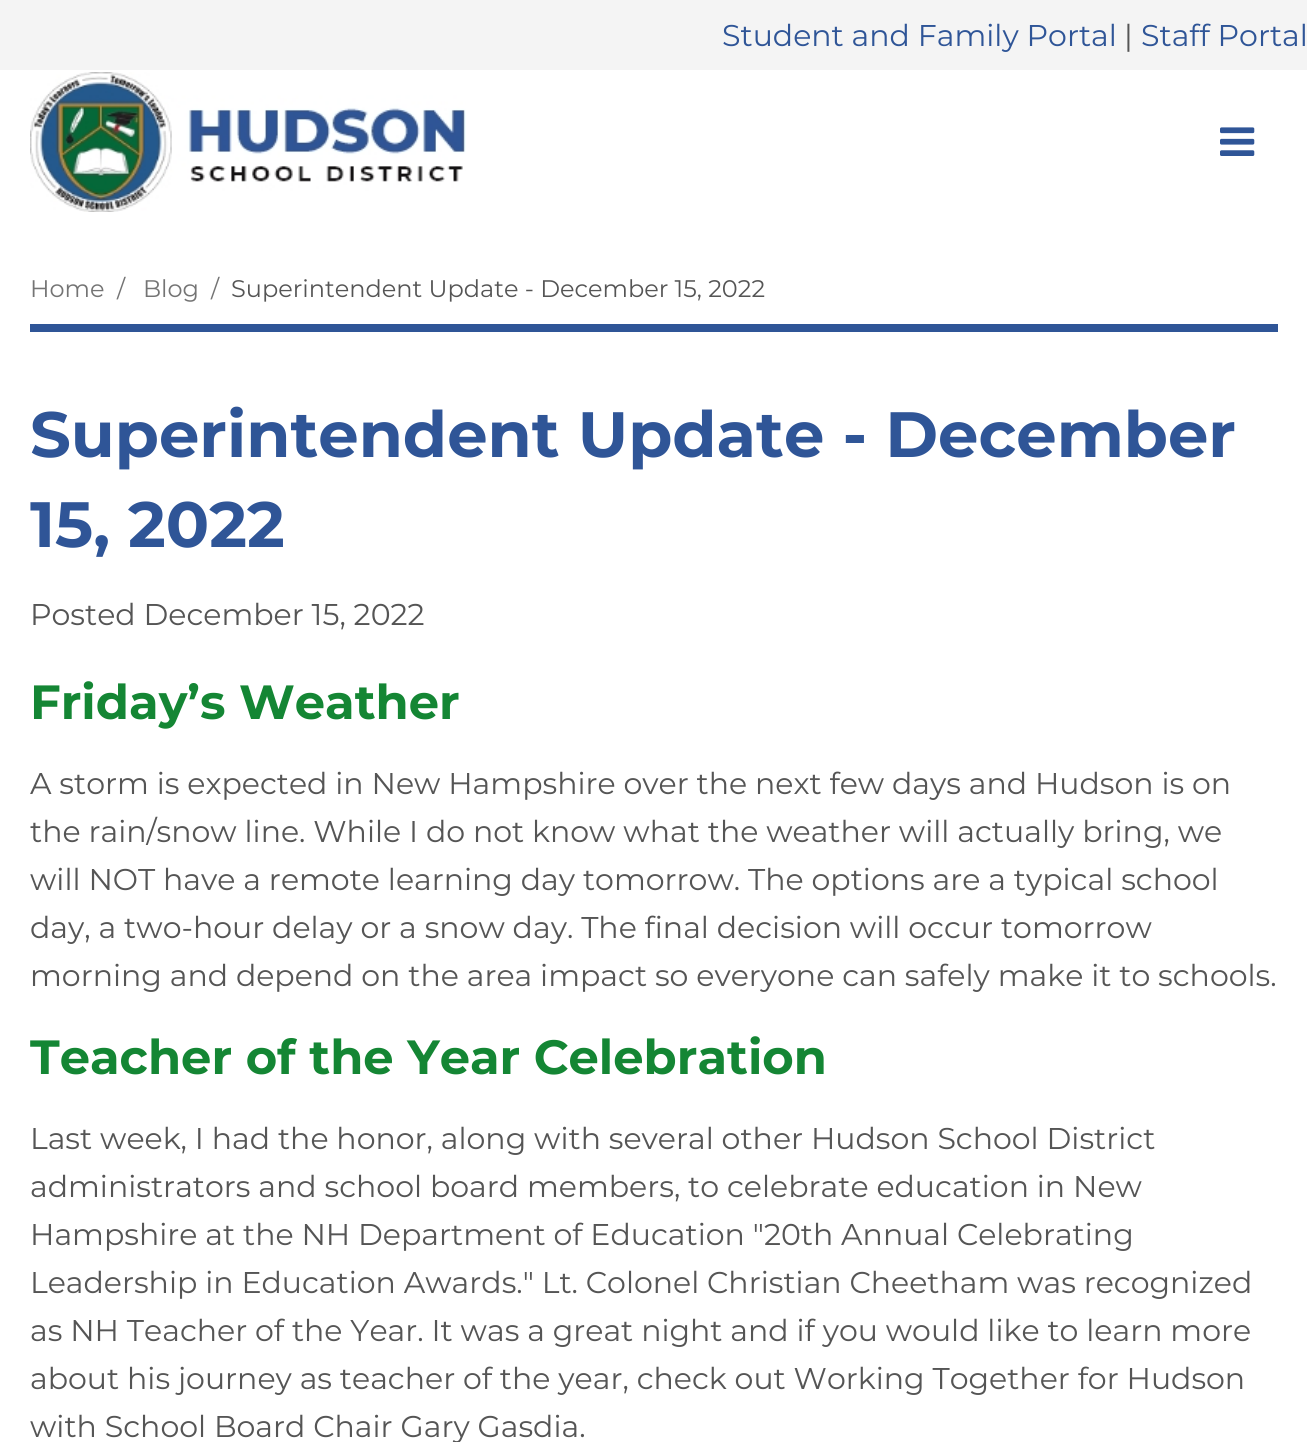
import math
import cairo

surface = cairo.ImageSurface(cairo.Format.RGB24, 1307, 1442)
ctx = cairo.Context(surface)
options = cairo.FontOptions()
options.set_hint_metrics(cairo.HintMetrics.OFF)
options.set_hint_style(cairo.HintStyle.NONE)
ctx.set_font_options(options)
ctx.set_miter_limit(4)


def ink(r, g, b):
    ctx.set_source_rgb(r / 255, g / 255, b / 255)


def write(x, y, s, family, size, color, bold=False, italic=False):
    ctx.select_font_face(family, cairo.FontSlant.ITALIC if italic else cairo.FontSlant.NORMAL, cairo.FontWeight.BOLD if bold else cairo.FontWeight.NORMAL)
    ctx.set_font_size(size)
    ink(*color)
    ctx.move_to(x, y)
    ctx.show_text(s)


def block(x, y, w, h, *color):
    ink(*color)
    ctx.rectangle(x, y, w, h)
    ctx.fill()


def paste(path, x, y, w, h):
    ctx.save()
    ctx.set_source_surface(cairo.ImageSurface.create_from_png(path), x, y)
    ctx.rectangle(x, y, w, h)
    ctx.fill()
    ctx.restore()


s1 = dict(family="Montserrat", size=30, color=(47, 85, 151))
s2 = dict(family="Montserrat", size=30, color=(85, 85, 85))
s3 = dict(family="Montserrat", size=24, color=(116, 116, 116))
s4 = dict(family="Montserrat", size=24, color=(85, 85, 85))
s5 = dict(family="Montserrat", size=64, color=(47, 85, 151), bold=True)
s6 = dict(family="Montserrat", size=48, color=(20, 134, 52), bold=True)

ink(255, 255, 255)
ctx.paint()
block(0, 0, 1307, 70, 244, 244, 244)
write(722, 46, "Student and Family Portal", **s1)
write(1124, 46, "|", **s2)
write(1141, 46, "Staff Portal", **s1)
paste("pic1.png", 30, 72, 436, 140)
paste("pic2.png", 1220, 127, 35, 29)
block(30, 324, 1248, 8, 47, 85, 151)
write(30, 297, "Home", **s3)
write(117, 297, "/", **s3)
write(143, 297, "Blog", **s3)
write(211, 297, "/", **s3)
write(231, 297, "Superintendent Update - December 15, 2022", **s4)
write(30, 457, "Superintendent Update - December", **s5)
write(30, 547, "15, 2022", **s5)
write(30, 625, "Posted December 15, 2022", **s2)
write(30, 719, "Friday’s Weather", **s6)
write(30, 794, "A storm is expected in New Hampshire over the next few days and Hudson is on", **s2)
write(30, 842, "the rain/snow line. While I do not know what the weather will actually bring, we", **s2)
write(30, 890, "will NOT have a remote learning day tomorrow. The options are a typical school", **s2)
write(30, 938, "day, a two-hour delay or a snow day. The final decision will occur tomorrow", **s2)
write(30, 986, "morning and depend on the area impact so everyone can safely make it to schools.", **s2)
write(30, 1074, "Teacher of the Year Celebration", **s6)
write(30, 1149, "Last week, I had the honor, along with several other Hudson School District", **s2)
write(30, 1197, "administrators and school board members, to celebrate education in New", **s2)
write(30, 1245, "Hampshire at the NH Department of Education \"20th Annual Celebrating", **s2)
write(30, 1293, "Leadership in Education Awards.\" Lt. Colonel Christian Cheetham was recognized", **s2)
write(30, 1341, "as NH Teacher of the Year. It was a great night and if you would like to learn more", **s2)
write(30, 1389, "about his journey as teacher of the year, check out Working Together for Hudson", **s2)
write(30, 1437, "with School Board Chair Gary Gasdia.", **s2)
surface.write_to_png("screenshot.png")
